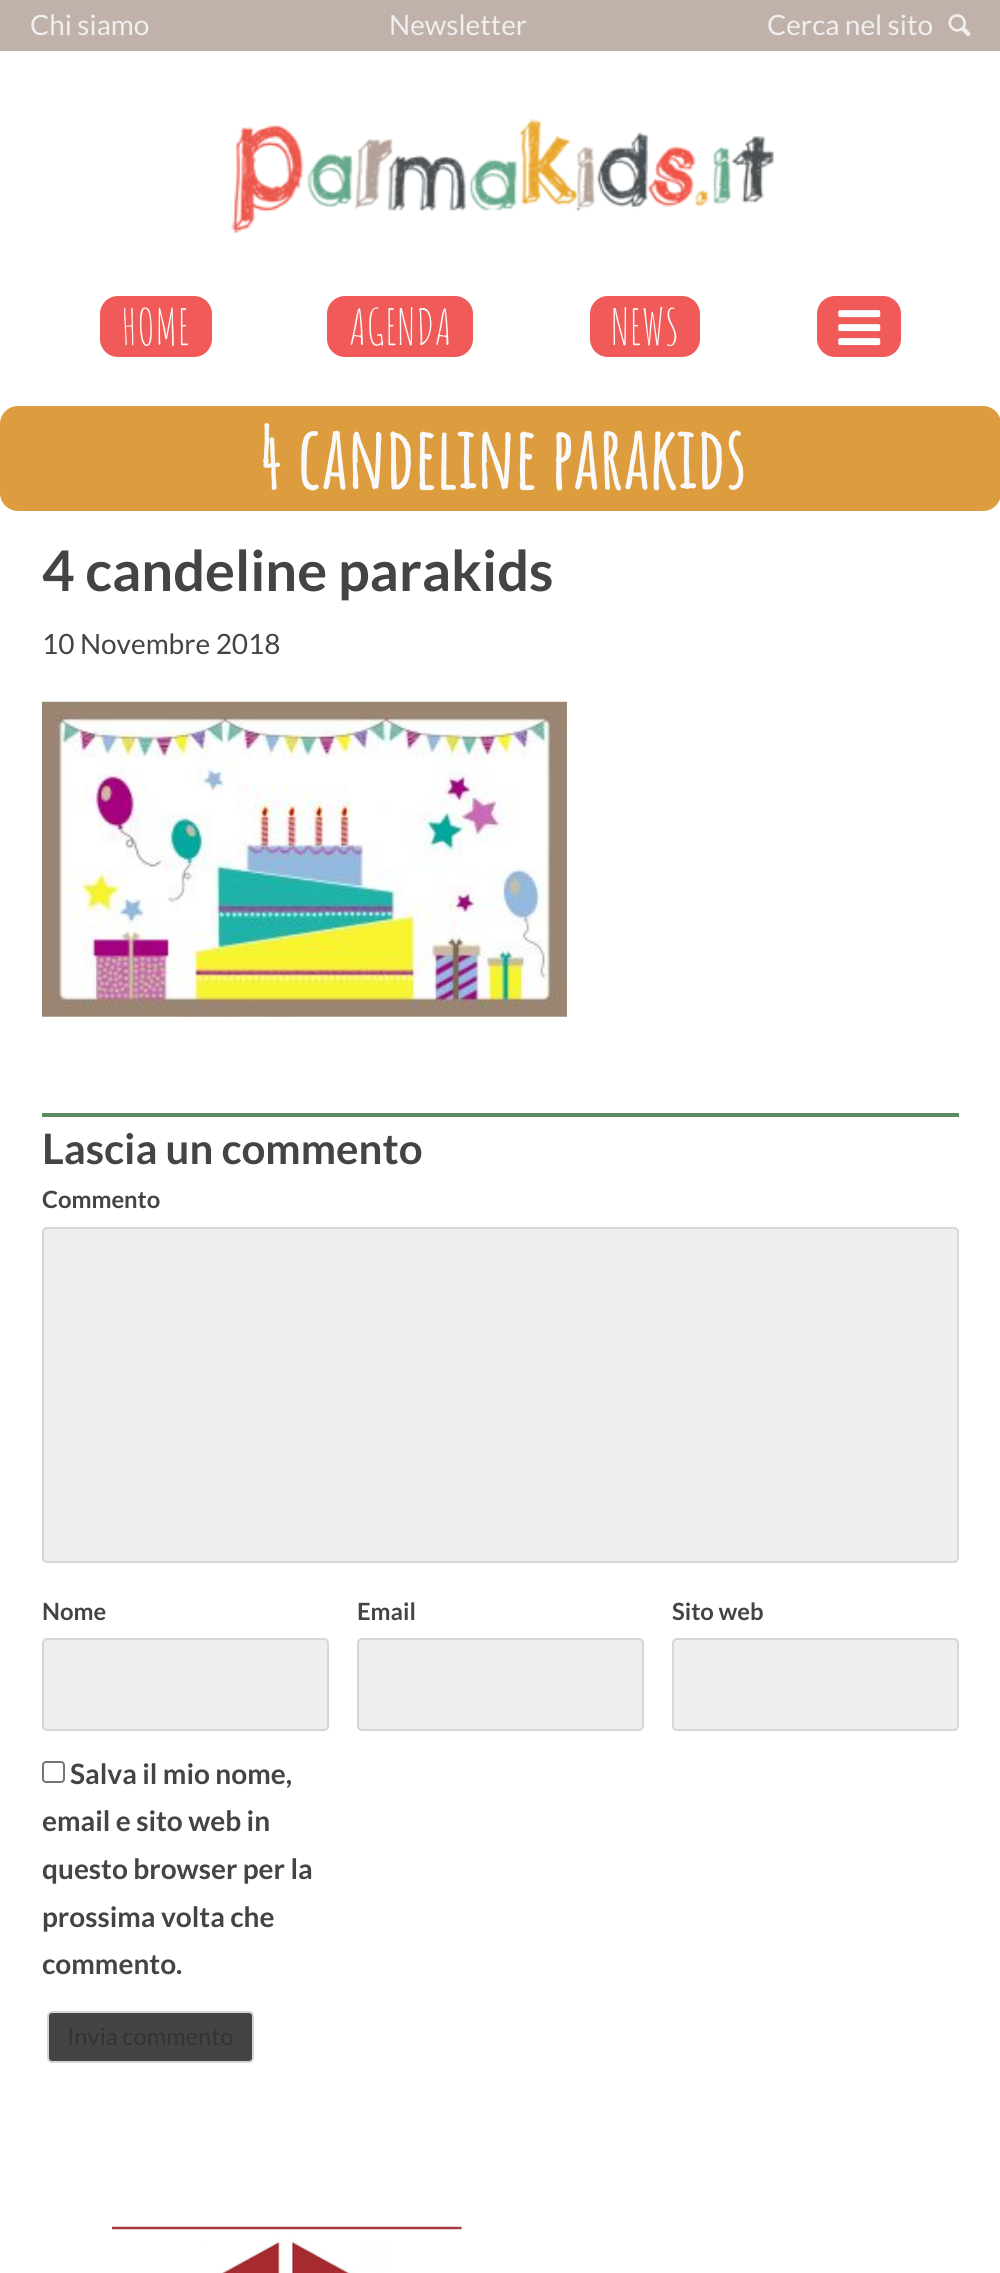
import math
import cairo

surface = cairo.ImageSurface(cairo.Format.RGB24, 1000, 2273)
ctx = cairo.Context(surface)
options = cairo.FontOptions()
options.set_hint_metrics(cairo.HintMetrics.OFF)
options.set_hint_style(cairo.HintStyle.NONE)
ctx.set_font_options(options)
ctx.set_miter_limit(4)


def ink(r, g, b):
    ctx.set_source_rgb(r / 255, g / 255, b / 255)


def write(x, y, s, family, size, color, bold=False, italic=False):
    ctx.select_font_face(family, cairo.FontSlant.ITALIC if italic else cairo.FontSlant.NORMAL, cairo.FontWeight.BOLD if bold else cairo.FontWeight.NORMAL)
    ctx.set_font_size(size)
    ink(*color)
    ctx.move_to(x, y)
    ctx.show_text(s)


def block(x, y, w, h, *color):
    ink(*color)
    ctx.rectangle(x, y, w, h)
    ctx.fill()


def round_path(x, y, w, h, r):
    ctx.new_sub_path()
    for i, (u, v) in enumerate([(x + w - r, y + h - r), (x + r, y + h - r), (x + r, y + r), (x + w - r, y + r)]):
        ctx.arc(u, v, r, i * math.pi / 2, (i + 1) * math.pi / 2)
    ctx.close_path()


def paste(path, x, y, w, h):
    ctx.save()
    ctx.set_source_surface(cairo.ImageSurface.create_from_png(path), x, y)
    ctx.rectangle(x, y, w, h)
    ctx.fill()
    ctx.restore()


s1 = dict(family="Lato", size=28, color=(239, 239, 239))
s2 = dict(family="Amatic SC", size=49, color=(249, 249, 249))
s3 = dict(family="Amatic SC", size=83.5, color=(249, 249, 249), bold=True)
s4 = dict(family="Lato", size=56, color=(68, 68, 68), bold=True)
s5 = dict(family="Lato", size=28, color=(68, 68, 68))
s6 = dict(family="Lato", size=42, color=(68, 68, 68), bold=True)
s7 = dict(family="Lato", size=23.75, color=(68, 68, 68), bold=True)
s8 = dict(family="Lato", size=28, color=(68, 68, 68), bold=True)
s9 = dict(family="Lato", size=23.75, color=(51, 51, 51))

ink(255, 255, 255)
ctx.paint()
block(0, 0, 1000, 51, 192, 177, 170)
write(30, 35, "Chi siamo", **s1)
write(389, 35, "Newsletter", **s1)
write(767, 35, "Cerca nel sito", **s1)
paste("pic1.png", 948, 14, 23, 23)
paste("pic2.png", 230, 118, 544, 116)
ink(240, 91, 89)
round_path(100, 296, 112, 61, 18)
ctx.fill()
write(121, 345, "HOME", **s2)
ink(240, 91, 89)
round_path(327, 296, 146, 61, 18)
ctx.fill()
write(349, 345, "AGENDA", **s2)
ink(240, 91, 89)
round_path(590, 296, 110, 61, 18)
ctx.fill()
write(611, 345, "NEWS", **s2)
ink(240, 91, 89)
round_path(817, 296, 84, 61, 18)
ctx.fill()
paste("pic3.png", 838, 310, 43, 36)
ink(221, 157, 62)
round_path(0, 406, 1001, 105, 18)
ctx.fill()
write(257, 489, "4 candeline parakids", **s3)
write(42, 591, "4 candeline parakids", **s4)
write(42, 654, "10 Novembre 2018", **s5)
paste("pic4.png", 42, 701, 525, 316)
block(42, 1113, 917, 4, 92, 139, 96)
write(42, 1164, "Lascia un commento", **s6)
write(42, 1208, "Commento", **s7)
ink(239, 239, 239)
round_path(43, 1228, 915, 334, 4)
ctx.fill_preserve()
ink(214, 214, 214)
ctx.stroke()
write(42, 1620, "Nome", **s7)
ink(239, 239, 239)
round_path(43, 1639, 285, 91, 4)
ctx.fill_preserve()
ink(214, 214, 214)
ctx.stroke()
write(357, 1620, "Email", **s7)
ink(239, 239, 239)
round_path(358, 1639, 285, 91, 4)
ctx.fill_preserve()
ink(214, 214, 214)
ctx.stroke()
write(672, 1620, "Sito web", **s7)
ink(239, 239, 239)
round_path(673, 1639, 285, 91, 4)
ctx.fill_preserve()
ink(214, 214, 214)
ctx.stroke()
round_path(43, 1762, 21, 20, 3)
ink(118, 118, 118)
ctx.stroke()
write(70, 1784, "Salva il mio nome,", **s8)
write(42, 1831, "email e sito web in", **s8)
write(42, 1879, "questo browser per la", **s8)
write(42, 1927, "prossima volta che", **s8)
write(42, 1974, "commento.", **s8)
round_path(48, 2012, 205, 50, 4)
ctx.fill_preserve()
ink(214, 214, 214)
ctx.stroke()
write(67, 2045, "Invia commento", **s9)
paste("pic5.png", 112, 2226, 350, 47)
surface.write_to_png("screenshot.png")
